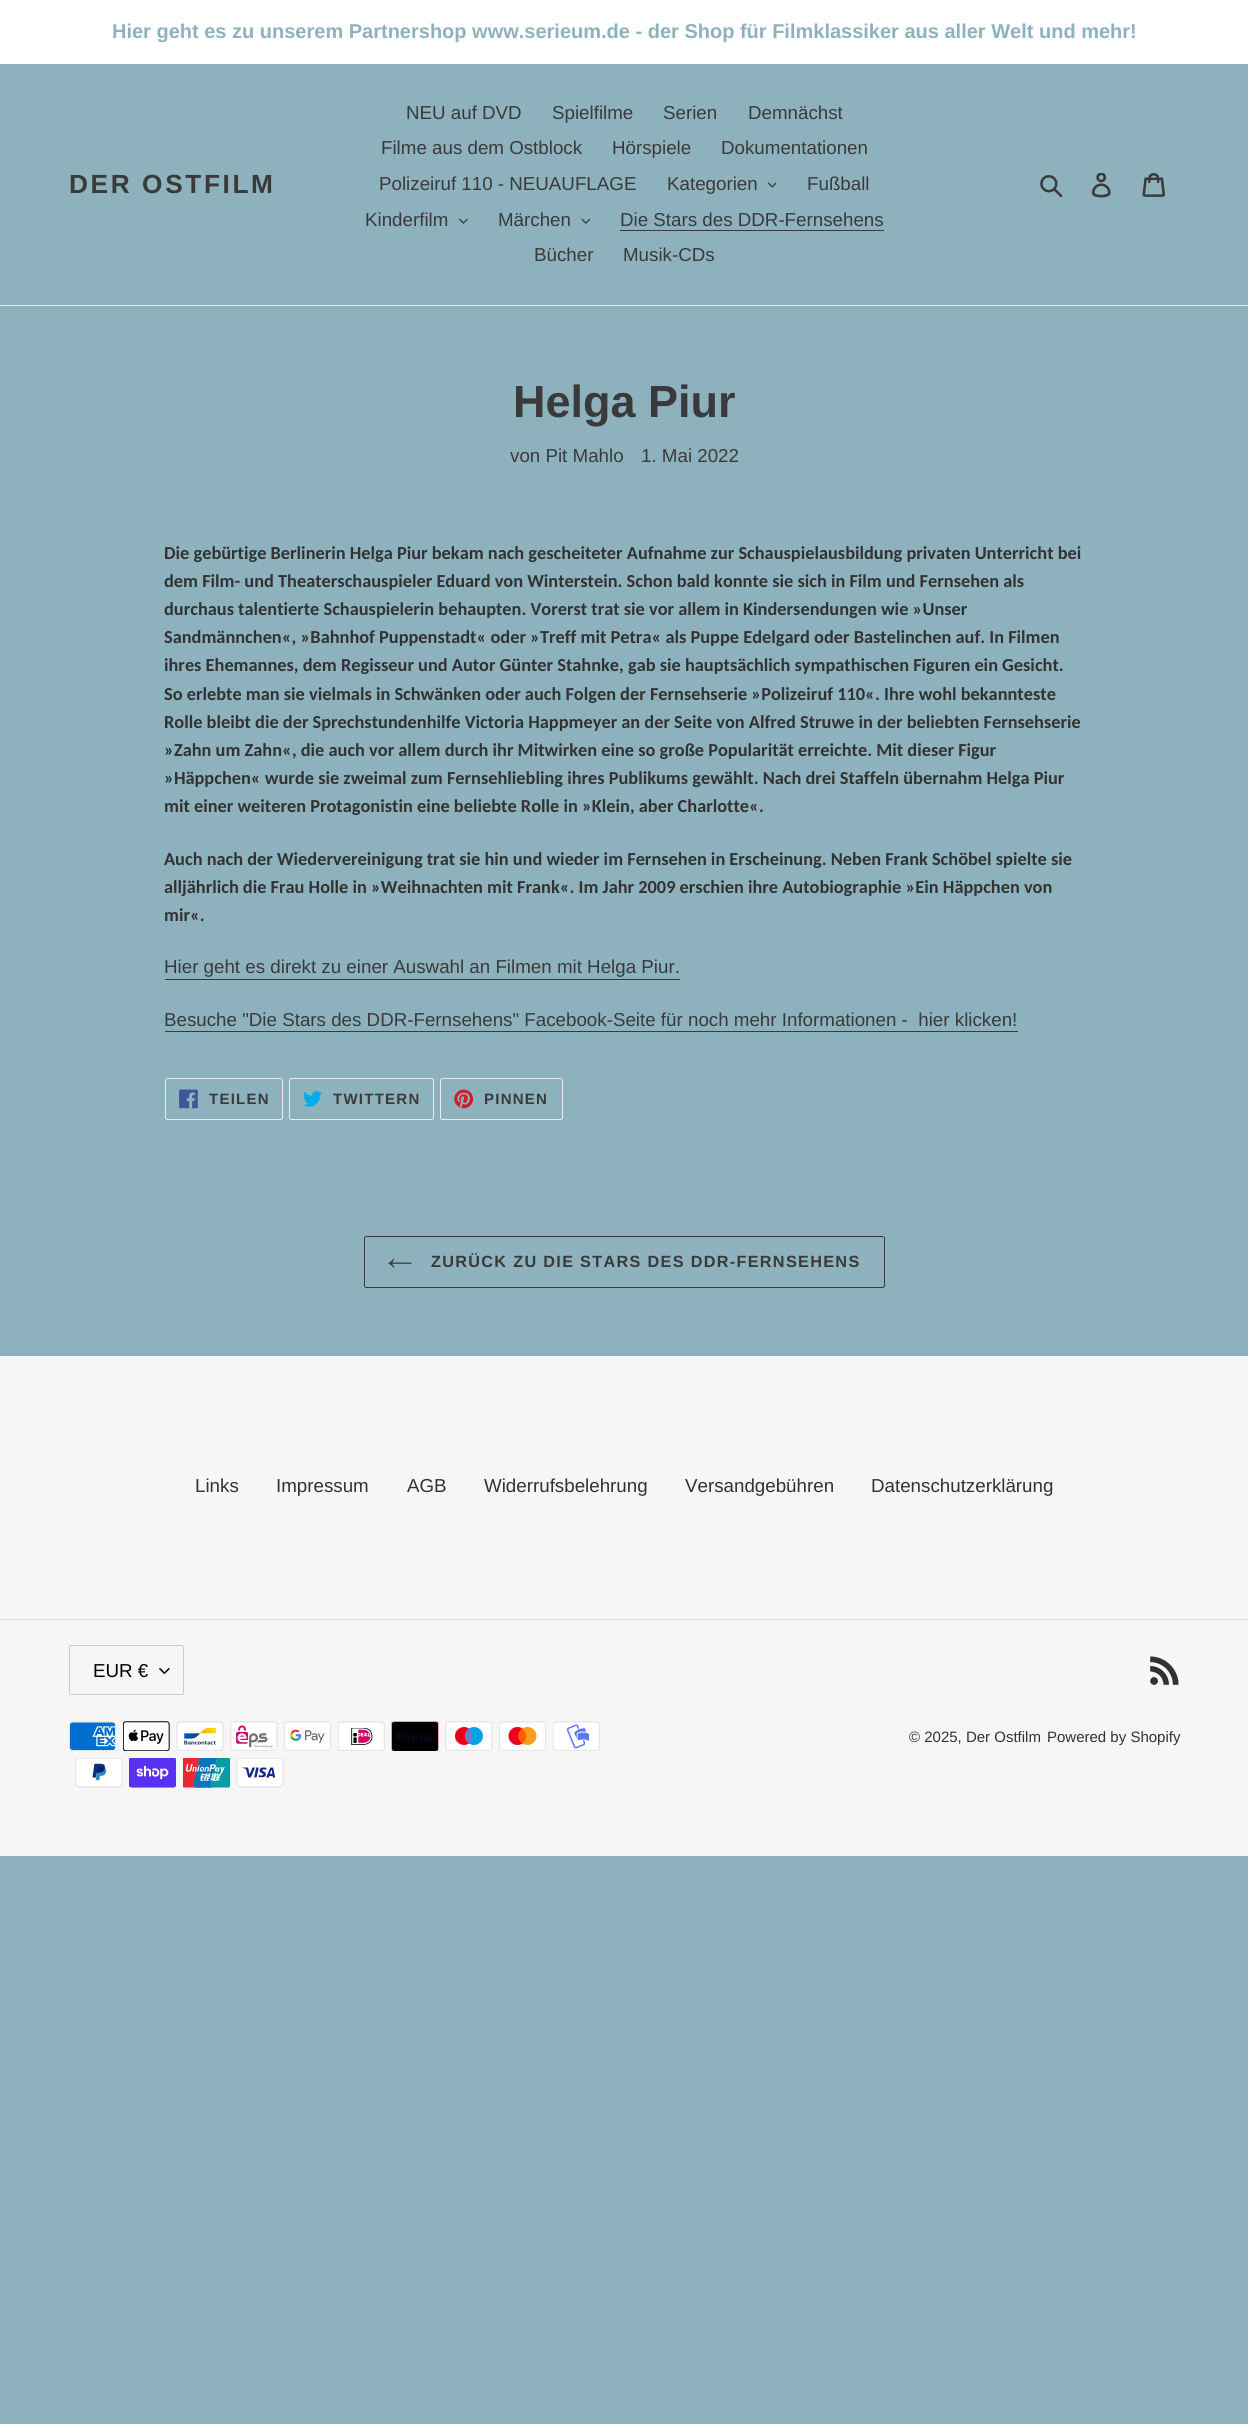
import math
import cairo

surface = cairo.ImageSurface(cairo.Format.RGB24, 1248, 2424)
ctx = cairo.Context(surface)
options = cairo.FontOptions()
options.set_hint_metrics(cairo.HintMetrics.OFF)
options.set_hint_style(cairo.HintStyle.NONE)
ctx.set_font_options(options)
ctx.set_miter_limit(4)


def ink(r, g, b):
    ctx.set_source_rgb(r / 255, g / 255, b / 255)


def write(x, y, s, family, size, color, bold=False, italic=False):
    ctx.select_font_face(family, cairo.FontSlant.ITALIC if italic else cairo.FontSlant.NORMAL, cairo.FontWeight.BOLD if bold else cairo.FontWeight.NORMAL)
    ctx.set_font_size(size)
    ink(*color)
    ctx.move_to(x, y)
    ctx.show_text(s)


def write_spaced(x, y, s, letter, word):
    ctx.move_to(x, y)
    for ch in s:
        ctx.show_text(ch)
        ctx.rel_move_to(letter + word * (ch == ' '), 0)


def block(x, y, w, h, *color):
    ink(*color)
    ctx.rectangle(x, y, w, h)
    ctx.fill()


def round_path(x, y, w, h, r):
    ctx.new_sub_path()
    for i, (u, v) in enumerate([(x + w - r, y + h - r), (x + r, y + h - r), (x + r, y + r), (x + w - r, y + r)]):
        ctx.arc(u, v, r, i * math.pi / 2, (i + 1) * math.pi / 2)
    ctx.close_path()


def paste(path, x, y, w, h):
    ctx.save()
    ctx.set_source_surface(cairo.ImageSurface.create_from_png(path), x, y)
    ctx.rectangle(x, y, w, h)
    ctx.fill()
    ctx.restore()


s1 = dict(family="Liberation Sans", size=20, color=(141, 178, 190), bold=True)
s2 = dict(family="Liberation Sans", size=18.75, color=(58, 58, 58))
s3 = dict(family="Liberation Sans", size=45, color=(58, 58, 58), bold=True)
s4 = dict(family="Carlito", size=18.35, color=(51, 50, 50), bold=True)
s5 = dict(family="Liberation Sans", size=18.75, color=(51, 50, 50))
s6 = dict(family="Liberation Sans", size=18.75, color=(0, 0, 0))
s7 = dict(family="Liberation Sans", size=15, color=(51, 50, 50))

ink(141, 178, 190)
ctx.paint()
block(0, 0, 1248, 64, 255, 255, 255)
write(112, 38, "Hier geht es zu unserem Partnershop www.serieum.de - der Shop für Filmklassiker aus aller Welt und mehr!", **s1)
block(0, 305, 1248, 1, 235, 235, 235)
ctx.set_font_size(26.25)
ink(58, 58, 58)
write_spaced(69, 193, "DER OSTFILM", 2.6, 0)
write(406, 119, "NEU auf DVD", **s2)
write(552, 119, "Spielfilme", **s2)
write(663, 119, "Serien", **s2)
write(748, 119, "Demnächst", **s2)
write(381, 154, "Filme aus dem Ostblock", **s2)
write(612, 154, "Hörspiele", **s2)
write(721, 154, "Dokumentationen", **s2)
write(379, 190, "Polizeiruf 110 - NEUAUFLAGE", **s2)
write(667, 190, "Kategorien", **s2)
paste("pic1.png", 768, 182, 8, 6)
write(807, 190, "Fußball", **s2)
write(365, 226, "Kinderfilm", **s2)
paste("pic2.png", 459, 218, 9, 6)
write(498, 226, "Märchen", **s2)
paste("pic3.png", 581, 218, 9, 6)
write(620, 226, "Die Stars des DDR-Fernsehens", **s2)
block(620, 230, 264, 1, 58, 58, 58)
write(534, 261, "Bücher", **s2)
write(623, 261, "Musik-CDs", **s2)
paste("pic4.png", 1040, 175, 23, 23)
paste("pic5.png", 1091, 173, 20, 25)
paste("pic6.png", 1142, 173, 23, 24)
write(513, 417, "Helga Piur", **s3)
write(510, 462, "von Pit Mahlo", **s2)
write(641, 462, "1. Mai 2022", **s2)
write(164, 559, "Die gebürtige Berlinerin Helga Piur bekam nach gescheiteter Aufnahme zur Schauspielausbildung privaten Unterricht bei", **s4)
write(164, 587, "dem Film- und Theaterschauspieler Eduard von Winterstein. Schon bald konnte sie sich in Film und Fernsehen als", **s4)
write(164, 615, "durchaus talentierte Schauspielerin behaupten. Vorerst trat sie vor allem in Kindersendungen wie »Unser", **s4)
write(164, 643, "Sandmännchen«, »Bahnhof Puppenstadt« oder »Treff mit Petra« als Puppe Edelgard oder Bastelinchen auf. In Filmen", **s4)
write(164, 671, "ihres Ehemannes, dem Regisseur und Autor Günter Stahnke, gab sie hauptsächlich sympathischen Figuren ein Gesicht.", **s4)
write(164, 700, "So erlebte man sie vielmals in Schwänken oder auch Folgen der Fernsehserie »Polizeiruf 110«. Ihre wohl bekannteste", **s4)
write(164, 728, "Rolle bleibt die der Sprechstundenhilfe Victoria Happmeyer an der Seite von Alfred Struwe in der beliebten Fernsehserie", **s4)
write(164, 756, "»Zahn um Zahn«, die auch vor allem durch ihr Mitwirken eine so große Popularität erreichte. Mit dieser Figur", **s4)
write(164, 784, "»Häppchen« wurde sie zweimal zum Fernsehliebling ihres Publikums gewählt. Nach drei Staffeln übernahm Helga Piur", **s4)
write(164, 812, "mit einer weiteren Protagonistin eine beliebte Rolle in »Klein, aber Charlotte«.", **s4)
write(164, 865, "Auch nach der Wiedervereinigung trat sie hin und wieder im Fernsehen in Erscheinung. Neben Frank Schöbel spielte sie", **s4)
write(164, 893, "alljährlich die Frau Holle in »Weihnachten mit Frank«. Im Jahr 2009 erschien ihre Autobiographie »Ein Häppchen von", **s4)
write(164, 921, "mir«.", **s4)
write(164, 973, "Hier geht es direkt zu einer Auswahl an Filmen mit Helga Piur.", **s2)
block(165, 979, 515, 1, 58, 58, 58)
write(164, 1026, "Besuche \"Die Stars des DDR-Fernsehens\" Facebook-Seite für noch mehr Informationen -  hier klicken!", **s2)
block(165, 1031, 853, 1, 58, 58, 58)
round_path(165.5, 1078.5, 117, 41, 2)
ink(235, 235, 235)
ctx.set_line_width(1)
ctx.stroke()
paste("pic7.png", 179, 1089, 19, 20)
ctx.select_font_face("Liberation Sans", cairo.FontSlant.NORMAL, cairo.FontWeight.BOLD)
ctx.set_font_size(15)
ink(58, 58, 58)
write_spaced(209, 1104, "TEILEN", 1.25, 0)
round_path(289.5, 1078.5, 144, 41, 2)
ink(235, 235, 235)
ctx.stroke()
paste("pic8.png", 303, 1091, 19, 16)
ink(58, 58, 58)
write_spaced(333, 1104, "TWITTERN", 1.25, 0)
round_path(440.5, 1078.5, 122, 41, 2)
ink(235, 235, 235)
ctx.stroke()
paste("pic9.png", 454, 1089, 20, 20)
ink(58, 58, 58)
write_spaced(484, 1104, "PINNEN", 1.25, 0)
round_path(364.5, 1236.5, 520, 51, 2)
ctx.stroke()
paste("pic10.png", 388, 1258, 24, 10)
ctx.set_font_size(16.25)
write_spaced(431, 1267, "ZURÜCK ZU DIE STARS DES DDR-FERNSEHENS", 1.3, 0)
block(0, 1356, 1248, 500, 246, 246, 246)
write(195, 1492, "Links", **s5)
write(276, 1492, "Impressum", **s5)
write(407, 1492, "AGB", **s5)
write(484, 1492, "Widerrufsbelehrung", **s5)
write(685, 1492, "Versandgebühren", **s5)
write(871, 1492, "Datenschutzerklärung", **s5)
block(0, 1619, 1248, 1, 221, 221, 221)
paste("pic11.png", 159, 1668, 11, 6)
round_path(69.5, 1645.5, 114, 49, 2)
ink(204, 204, 204)
ctx.stroke()
write(93, 1677, "EUR €", **s6)
paste("pic12.png", 1150, 1656, 29, 29)
paste("pic13.png", 69, 1721, 47, 30)
paste("pic14.png", 123, 1721, 47, 30)
paste("pic15.png", 176, 1721, 48, 30)
paste("pic16.png", 230, 1721, 48, 30)
paste("pic17.png", 284, 1721, 47, 30)
paste("pic18.png", 338, 1721, 47, 30)
paste("pic19.png", 391, 1721, 48, 30)
paste("pic20.png", 445, 1721, 48, 30)
paste("pic21.png", 499, 1721, 47, 30)
paste("pic22.png", 553, 1721, 47, 30)
paste("pic23.png", 75, 1758, 48, 30)
paste("pic24.png", 129, 1758, 47, 30)
paste("pic25.png", 183, 1758, 47, 30)
paste("pic26.png", 236, 1758, 48, 30)
write(909, 1742, "© 2025, Der Ostfilm", **s7)
write(1047, 1742, "Powered by Shopify", **s7)
surface.write_to_png("screenshot.png")
